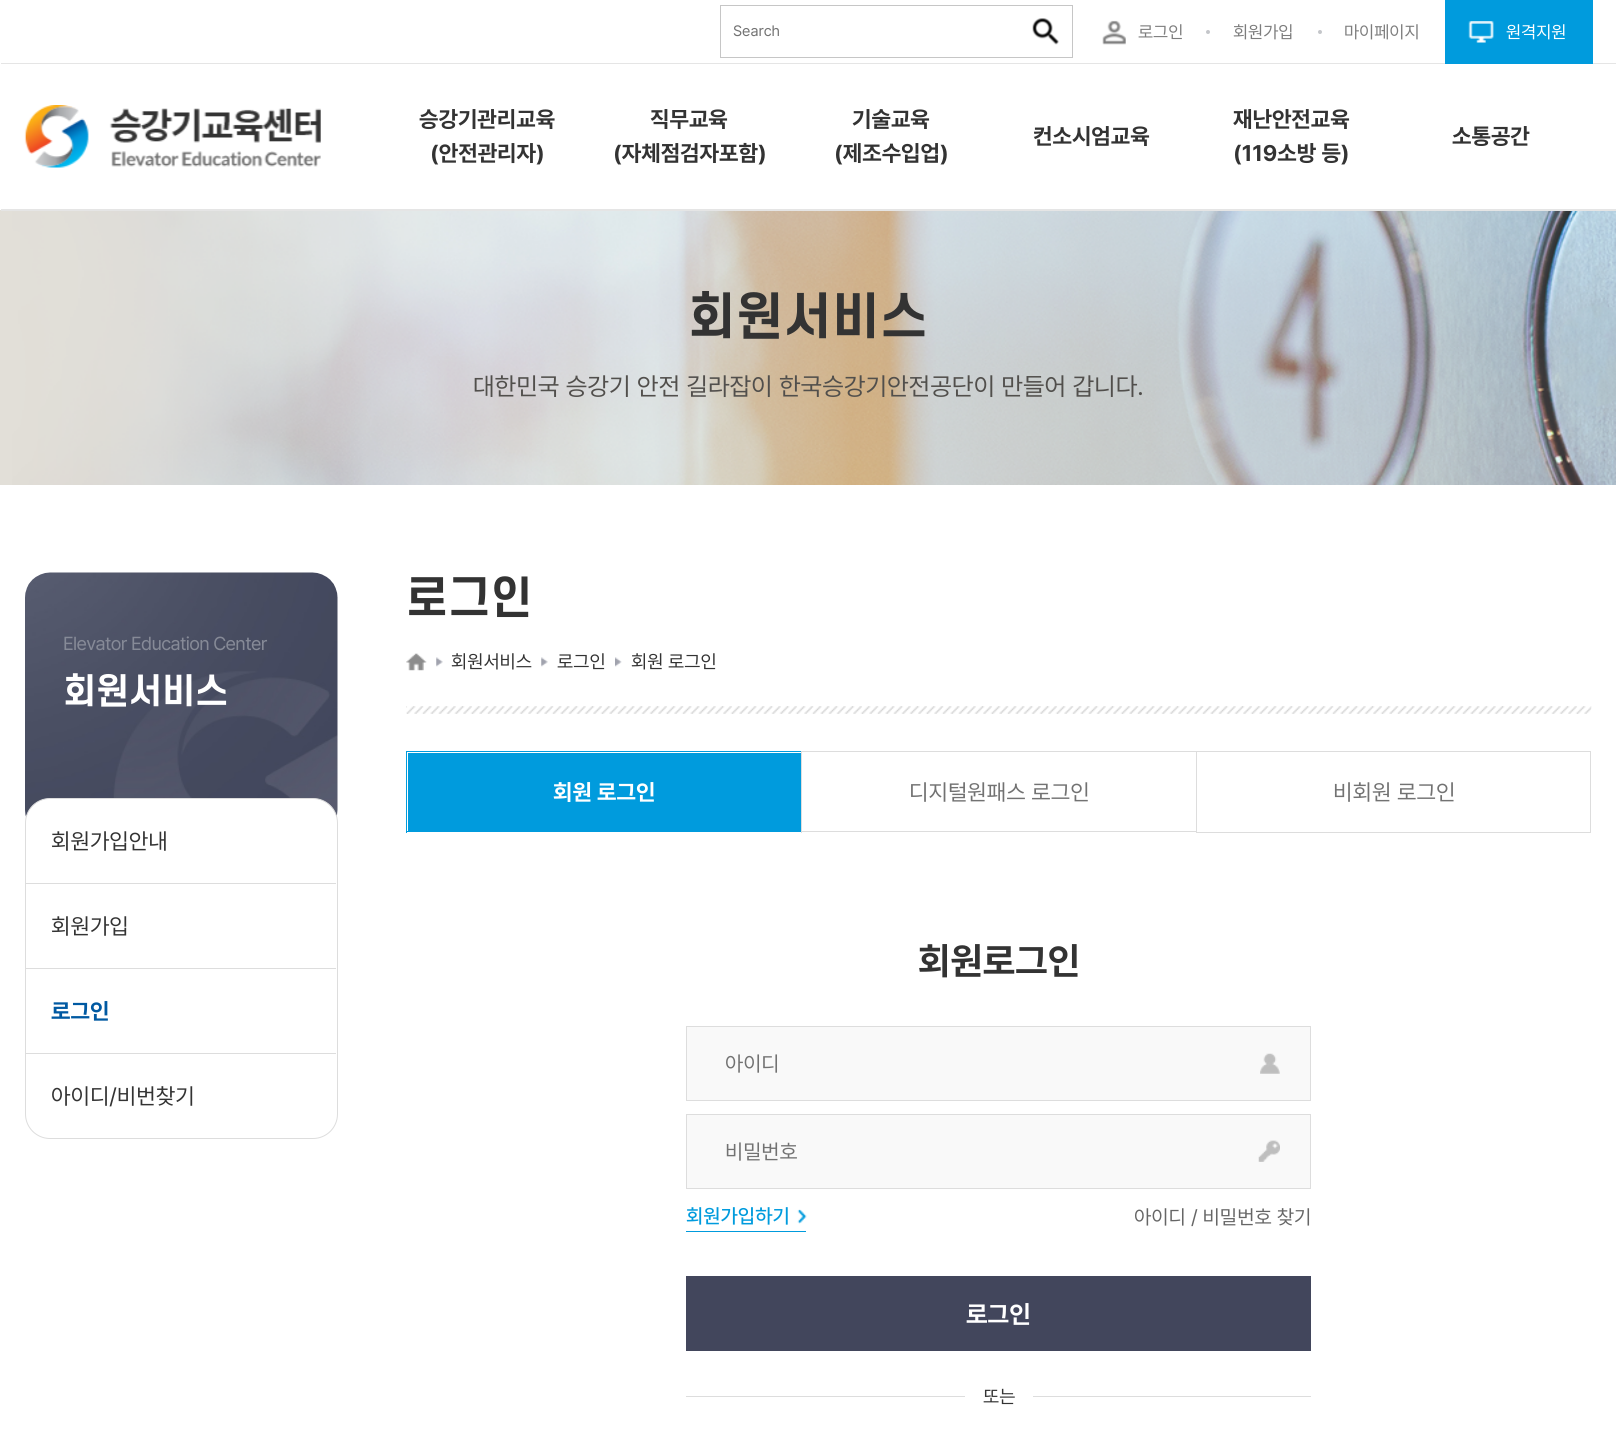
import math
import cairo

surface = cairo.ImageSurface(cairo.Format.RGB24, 1616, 1443)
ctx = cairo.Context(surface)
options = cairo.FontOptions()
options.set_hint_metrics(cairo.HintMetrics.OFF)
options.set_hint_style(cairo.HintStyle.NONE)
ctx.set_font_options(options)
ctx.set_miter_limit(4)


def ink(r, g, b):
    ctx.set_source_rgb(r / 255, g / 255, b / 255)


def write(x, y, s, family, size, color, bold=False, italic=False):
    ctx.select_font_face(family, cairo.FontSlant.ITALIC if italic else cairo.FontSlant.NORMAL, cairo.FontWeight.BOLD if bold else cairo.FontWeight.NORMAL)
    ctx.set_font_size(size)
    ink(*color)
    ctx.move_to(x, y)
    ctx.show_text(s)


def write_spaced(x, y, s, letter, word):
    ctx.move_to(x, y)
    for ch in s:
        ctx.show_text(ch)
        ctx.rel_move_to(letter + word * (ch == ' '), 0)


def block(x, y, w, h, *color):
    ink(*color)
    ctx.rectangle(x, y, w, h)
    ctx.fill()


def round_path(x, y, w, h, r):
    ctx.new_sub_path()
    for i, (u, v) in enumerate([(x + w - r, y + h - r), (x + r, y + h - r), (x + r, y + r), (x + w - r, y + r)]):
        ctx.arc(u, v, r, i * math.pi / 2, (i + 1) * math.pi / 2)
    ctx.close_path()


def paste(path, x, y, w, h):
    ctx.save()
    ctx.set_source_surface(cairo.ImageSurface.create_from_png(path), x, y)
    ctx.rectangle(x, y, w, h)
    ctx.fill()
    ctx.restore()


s1 = dict(family="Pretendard", size=15, color=(114, 114, 114))
s2 = dict(family="Pretendard", size=17.5, color=(125, 125, 125))
s3 = dict(family="Pretendard", size=17.5, color=(255, 255, 255))
s4 = dict(family="Pretendard", size=22.5, color=(51, 51, 51), bold=True)
s5 = dict(family="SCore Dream", size=50, color=(51, 51, 51), bold=True)
s6 = dict(family="Pretendard", size=25, color=(81, 79, 76))
s7 = dict(family="Pretendard", size=22.5, color=(51, 51, 51))
s8 = dict(family="Pretendard", size=22.5, color=(0, 89, 162), bold=True)
s9 = dict(family="SCore Dream", size=44, color=(51, 51, 51), bold=True)
s10 = dict(family="Pretendard", size=18.75, color=(51, 51, 51))
s11 = dict(family="Pretendard", size=22.5, color=(255, 255, 255), bold=True)
s12 = dict(family="Pretendard", size=22.5, color=(114, 114, 114))
s13 = dict(family="Pretendard", size=37.5, color=(51, 51, 51), bold=True)
s14 = dict(family="Pretendard", size=21, color=(114, 114, 114))
s15 = dict(family="Pretendard Medium", size=20, color=(0, 155, 221))
s16 = dict(family="Pretendard", size=20, color=(102, 102, 102))
s17 = dict(family="Pretendard", size=25, color=(255, 255, 255), bold=True)

ink(255, 255, 255)
ctx.paint()
paste("pic5.png", 0, 210, 1616, 275)
block(1, 209, 1615, 2, 229, 229, 229)
block(1, 63, 1615, 1, 229, 229, 229)
ctx.rectangle(720.5, 5.5, 352, 52)
ink(198, 198, 198)
ctx.set_line_width(1)
ctx.stroke()
write(733, 36, "Search", **s1)
paste("pic1.png", 1032, 18, 27, 27)
paste("pic2.png", 1102, 20, 24, 25)
write(1138, 38, "로그인", **s2)
ink(196, 198, 202)
ctx.new_path()
ctx.arc(1208, 32, 2, 0, 2 * math.pi)
ctx.fill()
write(1233, 38, "회원가입", **s2)
ink(196, 198, 202)
ctx.new_path()
ctx.arc(1320, 32, 2, 0, 2 * math.pi)
ctx.fill()
write(1344, 38, "마이페이지", **s2)
block(1445, 0, 148, 64, 0, 155, 221)
paste("pic3.png", 1468, 21, 26, 22)
write(1506, 38, "원격지원", **s3)
paste("pic4.png", 24, 105, 297, 63)
write(419, 127, "승강기관리교육", **s4)
write(430, 161, "(안전관리자)", **s4)
write(650, 127, "직무교육", **s4)
write(613, 161, "(자체점검자포함)", **s4)
write(852, 127, "기술교육", **s4)
write(834, 161, "(제조수입업)", **s4)
write(1033, 144, "컨소시엄교육", **s4)
write(1233, 127, "재난안전교육", **s4)
write(1233, 161, "(119소방 등)", **s4)
write(1452, 144, "소통공간", **s4)
write(688, 335, "회원서비스", **s5)
write(473, 395, "대한민국 승강기 안전 길라잡이 한국승강기안전공단이 만들어 갑니다.", **s6)
paste("pic6.png", 25, 572, 313, 245)
ctx.set_font_size(18.75)
ink(134, 138, 151)
write_spaced(63, 650, "Elevator Education Center", -0.6, 0)
ctx.select_font_face("SCore Dream", cairo.FontSlant.NORMAL, cairo.FontWeight.BOLD)
ctx.set_font_size(35)
ink(255, 255, 255)
write_spaced(63, 704, "회원서비스", -0.6, 0)
round_path(25.5, 798.5, 312, 340, 24.5)
ctx.fill_preserve()
ink(221, 221, 221)
ctx.stroke()
block(26, 883, 310, 1, 221, 221, 221)
write(51, 849, "회원가입안내", **s7)
block(26, 968, 310, 1, 221, 221, 221)
write(51, 934, "회원가입", **s7)
block(26, 1053, 310, 1, 221, 221, 221)
write(51, 1019, "로그인", **s8)
write(51, 1104, "아이디/비번찾기", **s7)
write(406, 614, "로그인", **s9)
paste("pic7.png", 406, 706, 1186, 8)
paste("pic8.png", 406, 653, 21, 18)
paste("pic9.png", 436, 657, 7, 10)
write(451, 668, "회원서비스", **s10)
paste("pic9.png", 541, 657, 7, 10)
write(557, 668, "로그인", **s10)
paste("pic10.png", 615, 657, 7, 10)
write(631, 668, "회원 로그인", **s10)
block(408, 753, 393, 78, 0, 155, 221)
block(406, 751, 395, 1, 0, 155, 221)
block(406, 831, 395, 1, 0, 155, 221)
block(406, 751, 1, 82, 0, 155, 221)
write(553, 800, "회원 로그인", **s11)
block(801, 751, 395, 1, 221, 221, 221)
block(801, 831, 395, 1, 221, 221, 221)
block(801, 751, 1, 82, 221, 221, 221)
write(909, 800, "디지털원패스 로그인", **s12)
ctx.rectangle(1196.5, 751.5, 394, 81)
ink(221, 221, 221)
ctx.stroke()
write(1333, 800, "비회원 로그인", **s12)
write(918, 974, "회원로그인", **s13)
ink(249, 249, 249)
ctx.rectangle(686.5, 1026.5, 624, 74)
ctx.fill_preserve()
ink(221, 221, 221)
ctx.stroke()
write(725, 1071, "아이디", **s14)
paste("pic11.png", 1260, 1053, 20, 21)
ink(249, 249, 249)
ctx.rectangle(686.5, 1114.5, 624, 74)
ctx.fill_preserve()
ink(221, 221, 221)
ctx.stroke()
write(725, 1159, "비밀번호", **s14)
paste("pic12.png", 1258, 1140, 22, 22)
block(686, 1231, 120, 1, 0, 155, 221)
write(686, 1223, "회원가입하기", **s15)
paste("pic13.png", 797, 1209, 10, 15)
write(1134, 1224, "아이디 / 비밀번호 찾기", **s16)
block(686, 1276, 625, 75, 66, 70, 92)
write(966, 1323, "로그인", **s17)
block(686, 1396, 625, 1, 221, 221, 221)
block(965, 1396, 68, 1, 255, 255, 255)
write(983, 1403, "또는", **s10)
surface.write_to_png("screenshot.png")
